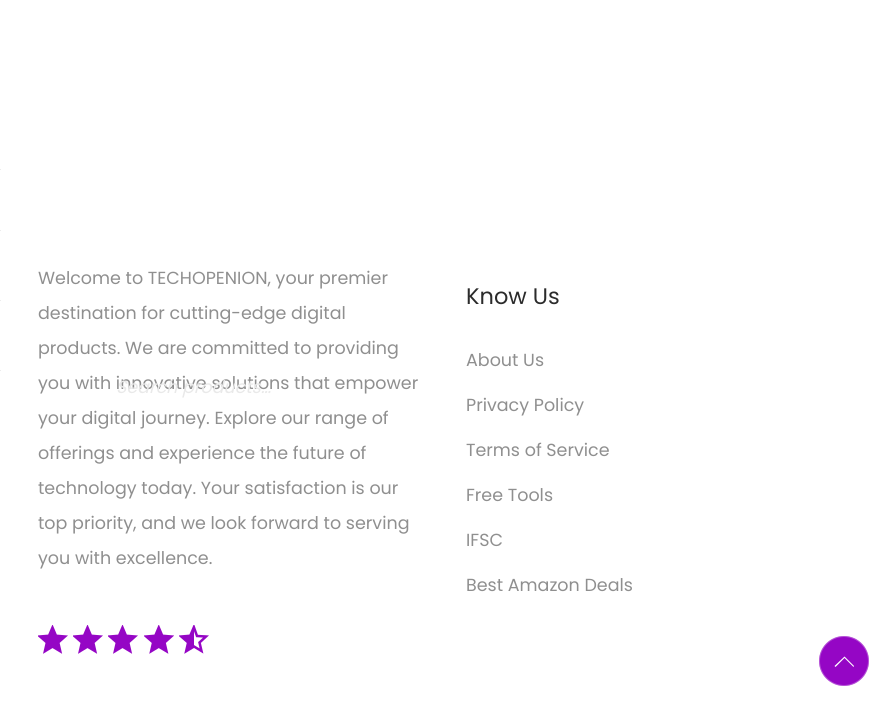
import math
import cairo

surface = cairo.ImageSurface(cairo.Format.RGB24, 893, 711)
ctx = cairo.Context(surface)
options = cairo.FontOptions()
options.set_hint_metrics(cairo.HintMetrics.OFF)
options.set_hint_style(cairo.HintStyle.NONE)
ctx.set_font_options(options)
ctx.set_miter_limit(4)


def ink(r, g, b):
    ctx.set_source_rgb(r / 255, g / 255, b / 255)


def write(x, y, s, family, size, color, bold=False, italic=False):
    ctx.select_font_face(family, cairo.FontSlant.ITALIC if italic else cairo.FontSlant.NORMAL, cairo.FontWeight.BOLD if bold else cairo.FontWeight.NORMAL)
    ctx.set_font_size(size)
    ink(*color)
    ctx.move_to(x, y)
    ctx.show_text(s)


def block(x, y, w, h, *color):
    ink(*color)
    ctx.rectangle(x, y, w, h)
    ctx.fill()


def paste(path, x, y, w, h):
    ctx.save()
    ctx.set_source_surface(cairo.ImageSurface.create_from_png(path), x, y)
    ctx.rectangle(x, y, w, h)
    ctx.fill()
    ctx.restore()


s1 = dict(family="Poppins", size=17.5, color=(143, 143, 143))
s2 = dict(family="Poppins", size=22.5, color=(43, 43, 43))
s3 = dict(family="Poppins", size=17.5, color=(233, 233, 233), italic=True)

ink(255, 255, 255)
ctx.paint()
block(0, 169, 1, 1, 236, 236, 236)
block(0, 230, 1, 1, 236, 236, 236)
block(0, 300, 1, 1, 236, 236, 236)
block(0, 370, 1, 1, 236, 236, 236)
write(38, 284, "Welcome to TECHOPENION, your premier", **s1)
write(38, 319, "destination for cutting-edge digital", **s1)
write(38, 354, "products. We are committed to providing", **s1)
write(38, 389, "you with innovative solutions that empower", **s1)
write(38, 424, "your digital journey. Explore our range of", **s1)
write(38, 459, "offerings and experience the future of", **s1)
write(38, 494, "technology today. Your satisfaction is our", **s1)
write(38, 529, "top priority, and we look forward to serving", **s1)
write(38, 564, "you with excellence.", **s1)
write(466, 304, "Know Us", **s2)
write(466, 366, "About Us", **s1)
write(466, 411, "Privacy Policy", **s1)
write(466, 456, "Terms of Service", **s1)
write(466, 501, "Free Tools", **s1)
write(466, 546, "IFSC", **s1)
write(466, 591, "Best Amazon Deals", **s1)
paste("pic1.png", 38, 625, 15, 29)
paste("pic2.png", 53, 625, 15, 29)
paste("pic1.png", 73, 625, 15, 29)
paste("pic2.png", 88, 625, 15, 29)
paste("pic1.png", 108, 625, 15, 29)
paste("pic2.png", 123, 625, 15, 29)
paste("pic3.png", 144, 625, 15, 29)
paste("pic4.png", 159, 625, 15, 29)
paste("pic3.png", 179, 625, 15, 29)
ctx.save()
ctx.rectangle(194, 625, 15, 30)
ctx.clip()
ctx.new_path()
ctx.move_to(194, 646.5)
ctx.line_to(201.5, 651)
ctx.line_to(199.5, 642.5)
ctx.line_to(206, 636.5)
ctx.line_to(197, 636)
ctx.line_to(194, 627.5)
ctx.line_to(190, 636)
ctx.line_to(181, 636.5)
ctx.line_to(188, 642.5)
ctx.line_to(186, 651)
ctx.close_path()
ink(149, 6, 197)
ctx.set_line_width(2.5)
ctx.stroke()
ctx.restore()
write(116, 393, "Search products…", **s3)
ink(149, 6, 197)
ctx.new_path()
ctx.arc(844, 661, 25, 0, 2 * math.pi)
ctx.fill()
ctx.arc(844, 661, 24.5, 0, 2 * math.pi)
ctx.set_source_rgba(1, 1, 1, 0.3)
ctx.set_line_width(1)
ctx.stroke()
ink(255, 255, 255)
ctx.new_path()
ctx.move_to(854, 666)
ctx.line_to(853.5, 667)
ctx.line_to(844.5, 658)
ctx.line_to(835.5, 667)
ctx.line_to(834.5, 666)
ctx.line_to(844.5, 656.5)
ctx.close_path()
ctx.fill()
surface.write_to_png("screenshot.png")
